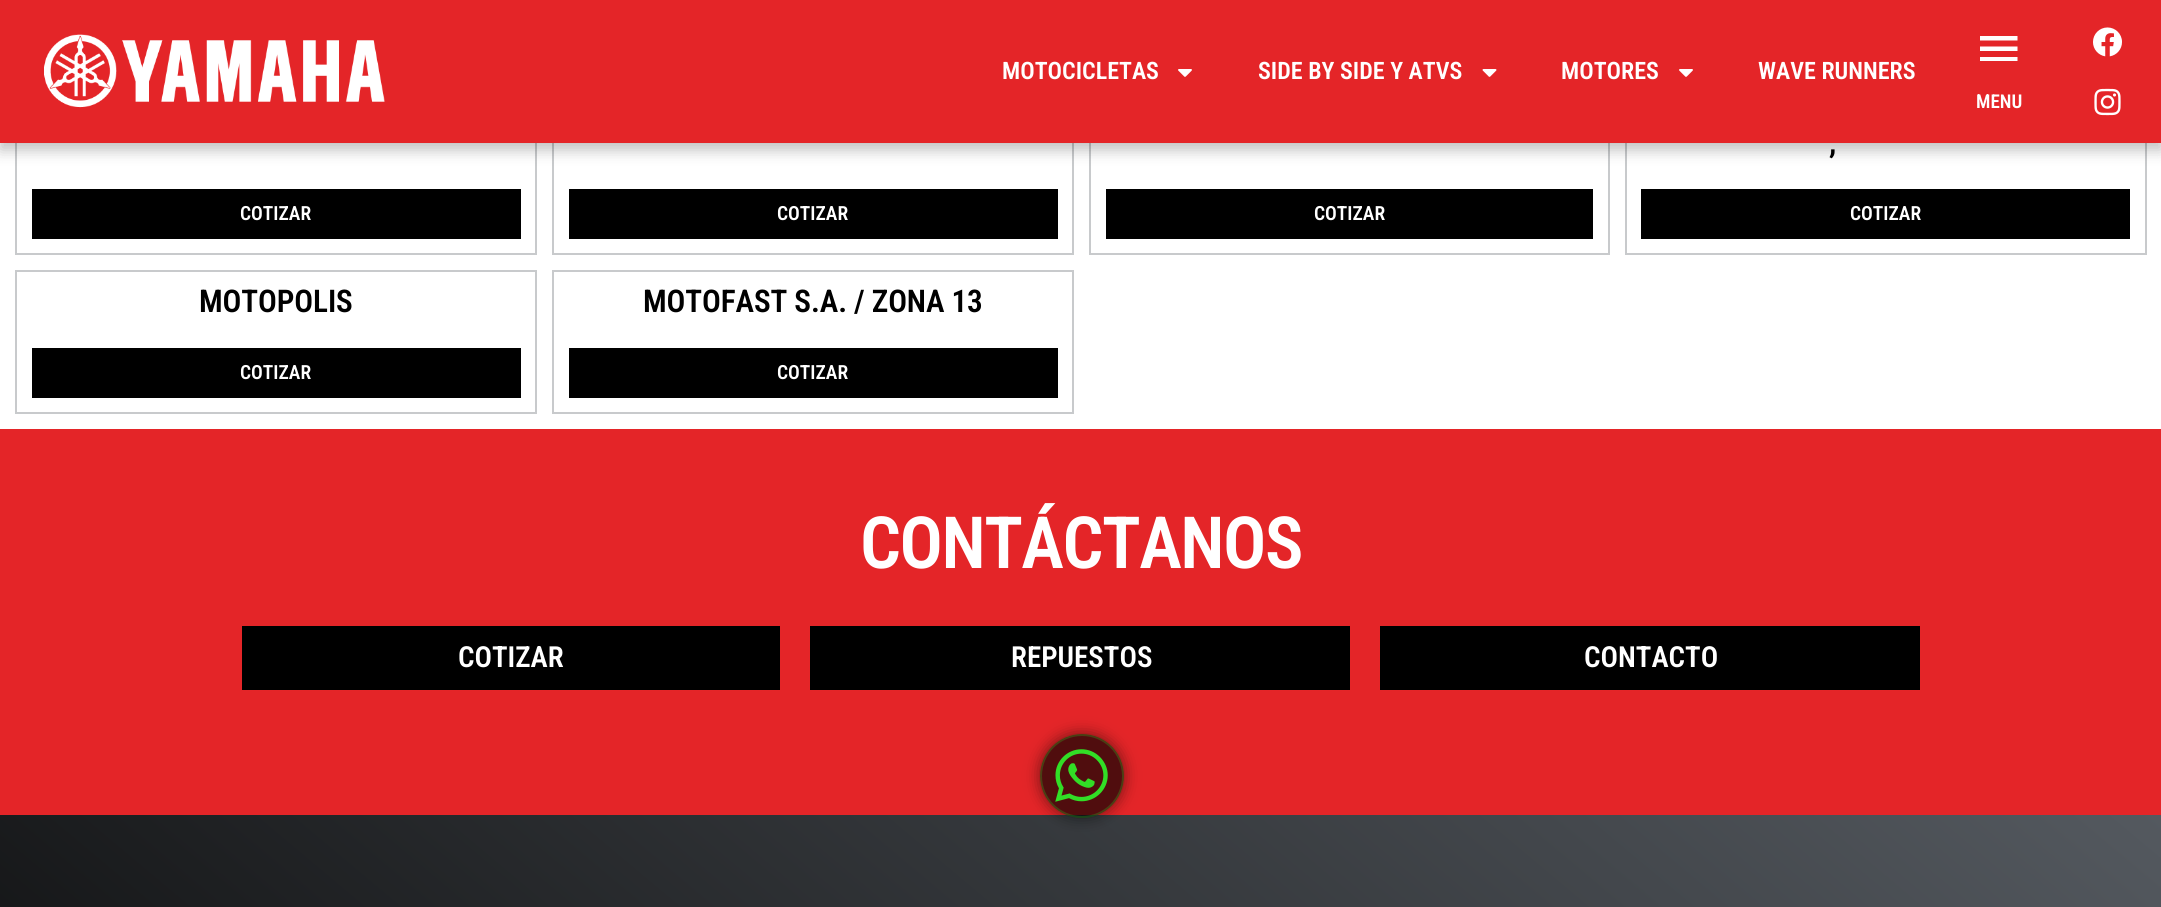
import math
import cairo

surface = cairo.ImageSurface(cairo.Format.RGB24, 2161, 907)
ctx = cairo.Context(surface)
options = cairo.FontOptions()
options.set_hint_metrics(cairo.HintMetrics.OFF)
options.set_hint_style(cairo.HintStyle.NONE)
ctx.set_font_options(options)
ctx.set_miter_limit(4)


def ink(r, g, b):
    ctx.set_source_rgb(r / 255, g / 255, b / 255)


def write(x, y, s, family, size, color, bold=False, italic=False):
    ctx.select_font_face(family, cairo.FontSlant.ITALIC if italic else cairo.FontSlant.NORMAL, cairo.FontWeight.BOLD if bold else cairo.FontWeight.NORMAL)
    ctx.set_font_size(size)
    ink(*color)
    ctx.move_to(x, y)
    ctx.show_text(s)


def write_spaced(x, y, s, letter, word):
    ctx.move_to(x, y)
    for ch in s:
        ctx.show_text(ch)
        ctx.rel_move_to(letter + word * (ch == ' '), 0)


def block(x, y, w, h, *color):
    ink(*color)
    ctx.rectangle(x, y, w, h)
    ctx.fill()


def round_path(x, y, w, h, r):
    ctx.new_sub_path()
    for i, (u, v) in enumerate([(x + w - r, y + h - r), (x + r, y + h - r), (x + r, y + r), (x + w - r, y + r)]):
        ctx.arc(u, v, r, i * math.pi / 2, (i + 1) * math.pi / 2)
    ctx.close_path()


def blur_box(x, y, w, h, r, blur, alpha):
    ctx.push_group_with_content(cairo.Content.ALPHA)
    ctx.set_operator(cairo.Operator.SOURCE)
    for i in range(15, -16, -2):
        e = blur * i / 6
        if min(w, h) + 2 * e > 0:
            ctx.set_source_rgba(0, 0, 0, alpha * math.erfc((i - 1) / 8.5) / 2)
            round_path(x - e, y - e, w + 2 * e, h + 2 * e, max(0, min(r + e + blur * .6, min(w, h) / 2 + e)))
            ctx.fill()
    ctx.mask(ctx.pop_group())


def paste(path, x, y, w, h):
    ctx.save()
    ctx.set_source_surface(cairo.ImageSurface.create_from_png(path), x, y)
    ctx.rectangle(x, y, w, h)
    ctx.fill()
    ctx.restore()


s1 = dict(family="Roboto Condensed SemiBold", size=24, color=(255, 255, 255))
s2 = dict(family="Roboto Condensed SemiBold", size=19, color=(255, 255, 255))
s3 = dict(family="Roboto Condensed SemiBold", size=19.5, color=(255, 255, 255))
s4 = dict(family="Roboto Condensed SemiBold", size=29, color=(255, 255, 255))

ink(255, 255, 255)
ctx.paint()
ctx.rectangle(16, 112, 520, 142)
ink(200, 202, 204)
ctx.stroke()
ctx.rectangle(553, 112, 520, 142)
ctx.stroke()
ctx.rectangle(1090, 112, 519, 142)
ctx.stroke()
ctx.rectangle(1626, 112, 520, 142)
ctx.stroke()
ink(0, 0, 0)
blur_box(0, 8, 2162, 142, 0, 7.5, 0.25)
block(0, 0, 2161, 143, 228, 37, 40)
paste("pic1.png", 44, 34, 341, 74)
write(1002, 79, "MOTOCICLETAS", **s1)
paste("pic2.png", 1178, 69, 14, 8)
write(1258, 79, "SIDE BY SIDE Y ATVS", **s1)
paste("pic3.png", 1482, 69, 15, 8)
write(1561, 79, "MOTORES", **s1)
paste("pic2.png", 1679, 69, 14, 8)
write(1758, 79, "WAVE RUNNERS", **s1)
ctx.set_fill_rule(cairo.FillRule.EVEN_ODD)
ctx.new_path()
ctx.move_to(1980, 61)
ctx.line_to(2017.5, 61)
ctx.line_to(2017.5, 57)
ctx.line_to(1980, 57)
ctx.close_path()
ctx.move_to(1980, 51)
ctx.line_to(2017.5, 51)
ctx.line_to(2017.5, 46.5)
ctx.line_to(1980, 46.5)
ctx.close_path()
ctx.move_to(1980, 36)
ctx.line_to(1980, 40.5)
ctx.line_to(2017.5, 40.5)
ctx.line_to(2017.5, 36)
ctx.close_path()
ctx.fill()
write(1976, 108, "MENU", **s2)
paste("pic4.png", 2093, 27, 29, 30)
paste("pic5.png", 2094, 88, 27, 28)
block(32, 189, 489, 50, 0, 0, 0)
write(240, 220, "COTIZAR", **s3)
block(569, 189, 489, 50, 0, 0, 0)
write(777, 220, "COTIZAR", **s3)
block(1106, 189, 487, 50, 0, 0, 0)
write(1314, 220, "COTIZAR", **s3)
ctx.set_font_size(31.25)
ink(0, 0, 0)
write_spaced(1829, 153, ",", -0.1, 0)
block(1641, 189, 489, 50, 0, 0, 0)
write(1850, 220, "COTIZAR", **s3)
ctx.rectangle(16, 271, 520, 142)
ink(200, 202, 204)
ctx.stroke()
ctx.set_font_size(31.25)
ink(0, 0, 0)
write_spaced(199, 312, "MOTOPOLIS", -0.1, 0)
block(32, 348, 489, 50, 0, 0, 0)
write(240, 379, "COTIZAR", **s3)
ctx.rectangle(553, 271, 520, 142)
ink(200, 202, 204)
ctx.stroke()
ctx.set_font_size(31.25)
ink(0, 0, 0)
write_spaced(643, 312, "MOTOFAST S.A. / ZONA 13", -0.1, 0)
block(569, 348, 489, 50, 0, 0, 0)
write(777, 379, "COTIZAR", **s3)
block(0, 429, 2161, 386, 228, 37, 40)
ctx.set_font_size(72)
ink(255, 255, 255)
write_spaced(860, 568, "CONTÁCTANOS", -1.5, 0)
block(242, 626, 538, 64, 0, 0, 0)
write(458, 667, "COTIZAR", **s4)
block(810, 626, 540, 64, 0, 0, 0)
write(1011, 667, "REPUESTOS", **s4)
block(1380, 626, 540, 64, 0, 0, 0)
write(1584, 667, "CONTACTO", **s4)
gradient = cairo.LinearGradient(1723, 447, 438, 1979)
gradient.add_color_stop_rgba(0, 0.329, 0.349, 0.373, 1)
gradient.add_color_stop_rgba(1, 0, 0, 0, 1)
ctx.set_source(gradient)
ctx.rectangle(0, 815, 2161, 92)
ctx.fill()
ctx.save()
ctx.new_path()
ctx.move_to(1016, 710)
ctx.line_to(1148, 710)
ctx.line_to(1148, 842)
ctx.line_to(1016, 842)
ctx.close_path()
ctx.move_to(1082, 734)
ctx.curve_to(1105, 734, 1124, 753, 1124, 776)
ctx.curve_to(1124, 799, 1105, 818, 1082, 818)
ctx.curve_to(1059, 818, 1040, 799, 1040, 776)
ctx.curve_to(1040, 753, 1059, 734, 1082, 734)
ctx.close_path()
ctx.clip()
ink(0, 0, 0)
blur_box(1040, 734, 84, 84, 42, 7.5, 0.5)
ctx.restore()
ctx.set_source_rgba(0, 0, 0, 0.65)
ctx.arc(1082, 776, 42, 0, 2 * math.pi)
ctx.fill()
ctx.arc(1082, 776, 41, 0, 2 * math.pi)
ctx.set_source_rgba(0.196, 0.871, 0.149, 0.24)
ctx.stroke()
paste("pic6.png", 1055, 749, 53, 53)
surface.write_to_png("screenshot.png")
